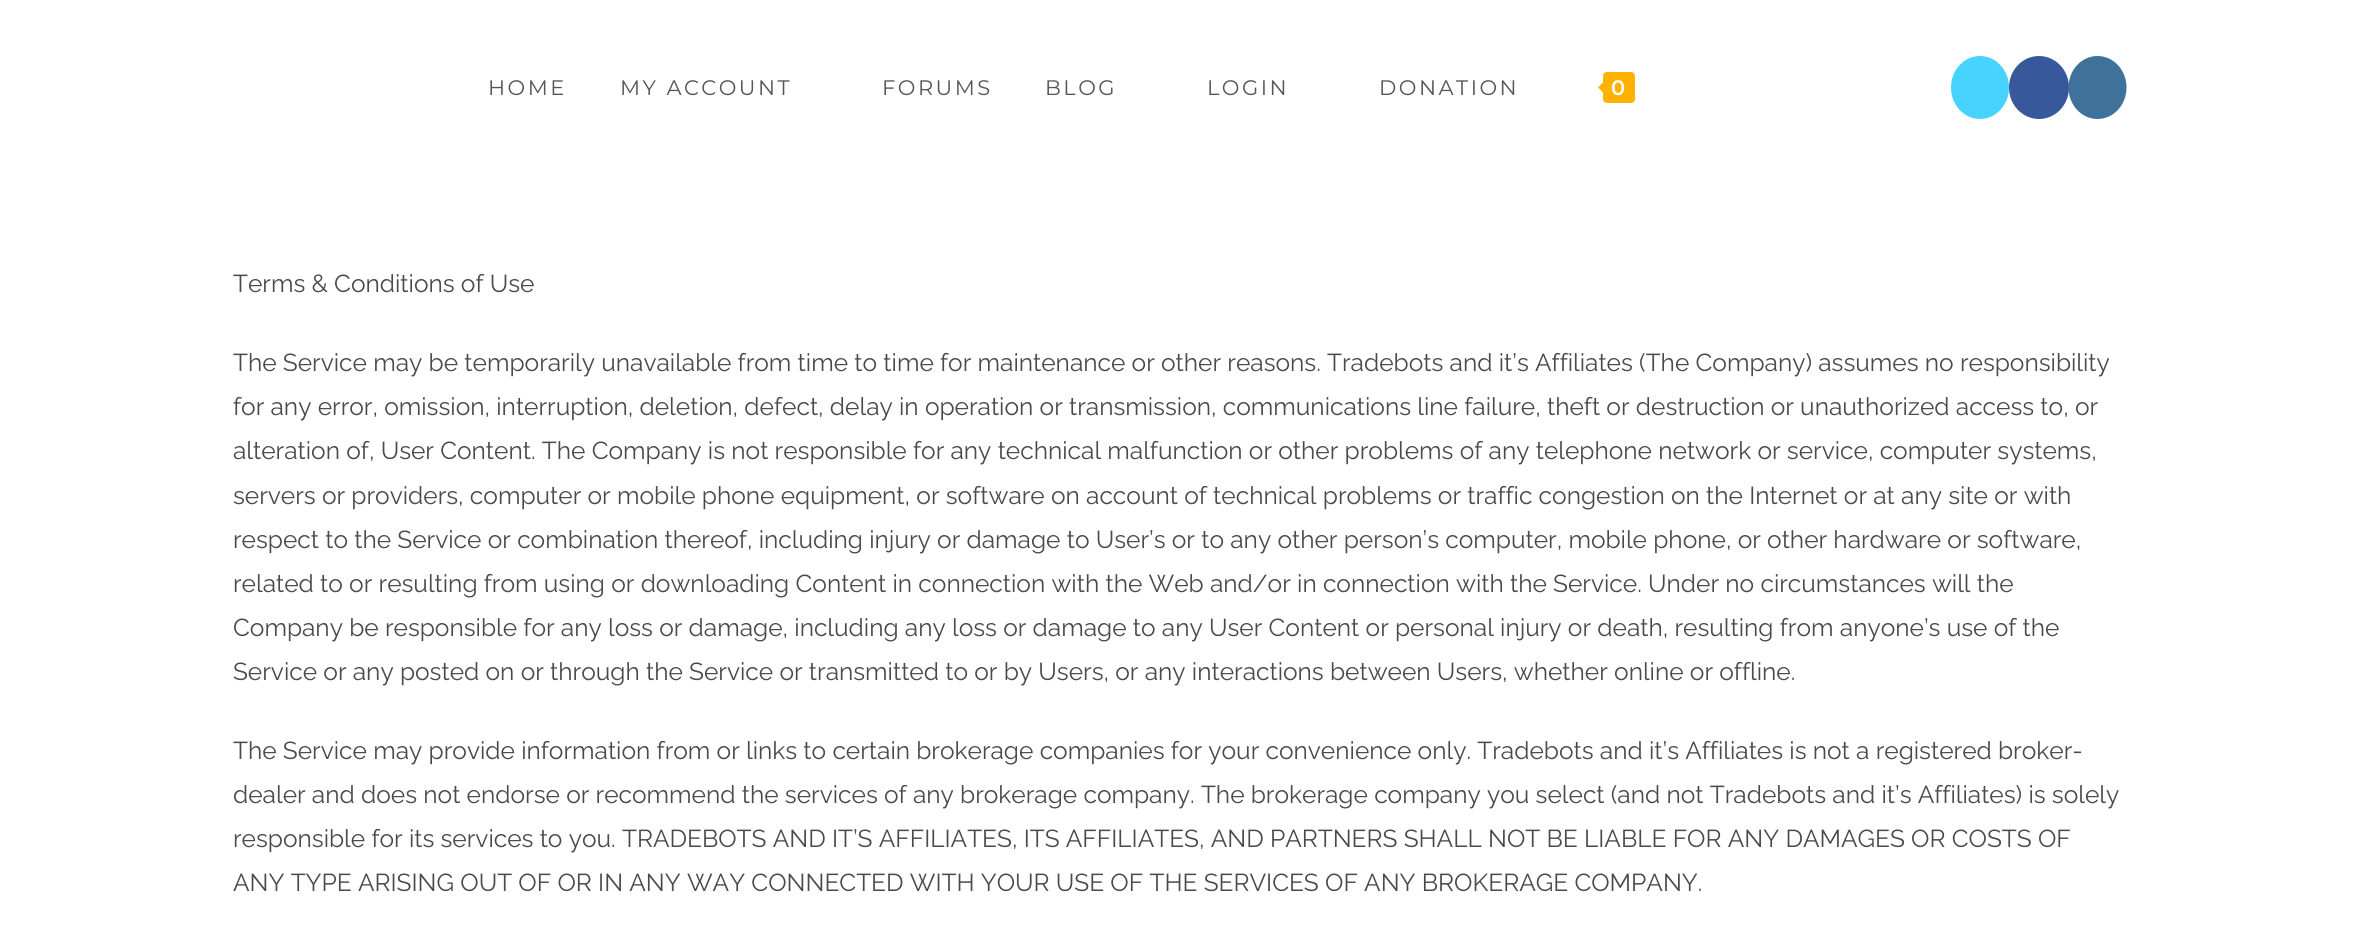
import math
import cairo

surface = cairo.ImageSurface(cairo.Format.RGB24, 2354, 951)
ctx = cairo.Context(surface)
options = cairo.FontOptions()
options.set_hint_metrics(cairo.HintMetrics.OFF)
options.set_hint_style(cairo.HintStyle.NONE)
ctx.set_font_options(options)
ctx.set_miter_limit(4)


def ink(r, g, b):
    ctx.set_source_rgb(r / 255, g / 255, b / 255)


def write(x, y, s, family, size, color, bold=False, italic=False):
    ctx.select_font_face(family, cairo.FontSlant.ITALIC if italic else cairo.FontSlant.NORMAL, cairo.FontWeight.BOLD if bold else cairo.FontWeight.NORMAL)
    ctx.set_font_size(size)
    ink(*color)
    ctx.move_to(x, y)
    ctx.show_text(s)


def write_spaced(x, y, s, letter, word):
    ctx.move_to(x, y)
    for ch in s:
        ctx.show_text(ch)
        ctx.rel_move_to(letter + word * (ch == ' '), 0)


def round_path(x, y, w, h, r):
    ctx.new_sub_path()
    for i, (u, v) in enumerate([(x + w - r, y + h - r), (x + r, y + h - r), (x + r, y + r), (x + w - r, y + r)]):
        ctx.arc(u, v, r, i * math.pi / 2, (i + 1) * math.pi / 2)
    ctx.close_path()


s1 = dict(family="Montserrat SemiBold", size=21, color=(255, 255, 255))
s2 = dict(family="Raleway", size=24.5, color=(74, 74, 74))

ink(255, 255, 255)
ctx.paint()
ctx.select_font_face("Montserrat")
ctx.set_font_size(21)
ink(85, 85, 85)
write_spaced(488, 95, "HOME", 2.5, 0)
write_spaced(620, 95, "MY ACCOUNT", 2.5, 0)
write_spaced(882, 95, "FORUMS", 2.5, 0)
write_spaced(1045, 95, "BLOG", 2.5, 0)
write_spaced(1207, 95, "LOGIN", 2.5, 0)
write_spaced(1379, 95, "DONATION", 2.5, 0)
ink(255, 178, 0)
round_path(1603, 72, 32, 31, 4)
ctx.fill()
ctx.new_path()
ctx.move_to(1606.5, 79)
ctx.line_to(1606.5, 96)
ctx.line_to(1598, 87.5)
ctx.close_path()
ctx.fill()
write(1611, 95, "0", **s1)
ink(70, 212, 254)
ctx.new_path()
ctx.move_to(1980, 56)
ctx.curve_to(1996, 56, 2009, 70, 2009, 87.5)
ctx.curve_to(2009, 105, 1996, 119, 1980, 119)
ctx.curve_to(1964, 119, 1951, 105, 1951, 87.5)
ctx.curve_to(1951, 70, 1964, 56, 1980, 56)
ctx.close_path()
ctx.fill()
ink(55, 88, 155)
ctx.new_path()
ctx.move_to(2039, 56)
ctx.curve_to(2055.5, 56, 2069, 70, 2069, 87.5)
ctx.curve_to(2069, 105, 2055.5, 119, 2039, 119)
ctx.curve_to(2022.5, 119, 2009, 105, 2009, 87.5)
ctx.curve_to(2009, 70, 2022.5, 56, 2039, 56)
ctx.close_path()
ctx.fill()
ink(63, 114, 155)
ctx.new_path()
ctx.move_to(2097.5, 56)
ctx.curve_to(2113.5, 56, 2126.5, 70, 2126.5, 87.5)
ctx.curve_to(2126.5, 105, 2113.5, 119, 2097.5, 119)
ctx.curve_to(2081.5, 119, 2068.5, 105, 2068.5, 87.5)
ctx.curve_to(2068.5, 70, 2081.5, 56, 2097.5, 56)
ctx.close_path()
ctx.fill()
write(233, 292, "Terms & Conditions of Use", **s2)
write(233, 371, "The Service may be temporarily unavailable from time to time for maintenance or other reasons. Tradebots and it’s Affiliates (The Company) assumes no responsibility", **s2)
write(233, 415, "for any error, omission, interruption, deletion, defect, delay in operation or transmission, communications line failure, theft or destruction or unauthorized access to, or", **s2)
write(233, 459, "alteration of, User Content. The Company is not responsible for any technical malfunction or other problems of any telephone network or service, computer systems,", **s2)
write(233, 504, "servers or providers, computer or mobile phone equipment, or software on account of technical problems or traffic congestion on the Internet or at any site or with", **s2)
write(233, 548, "respect to the Service or combination thereof, including injury or damage to User’s or to any other person’s computer, mobile phone, or other hardware or software,", **s2)
write(233, 592, "related to or resulting from using or downloading Content in connection with the Web and/or in connection with the Service. Under no circumstances will the", **s2)
write(233, 636, "Company be responsible for any loss or damage, including any loss or damage to any User Content or personal injury or death, resulting from anyone’s use of the", **s2)
write(233, 680, "Service or any posted on or through the Service or transmitted to or by Users, or any interactions between Users, whether online or offline.", **s2)
write(233, 759, "The Service may provide information from or links to certain brokerage companies for your convenience only. Tradebots and it’s Affiliates is not a registered broker-", **s2)
write(233, 803, "dealer and does not endorse or recommend the services of any brokerage company. The brokerage company you select (and not Tradebots and it’s Affiliates) is solely", **s2)
write(233, 847, "responsible for its services to you. TRADEBOTS AND IT’S AFFILIATES, ITS AFFILIATES, AND PARTNERS SHALL NOT BE LIABLE FOR ANY DAMAGES OR COSTS OF", **s2)
write(233, 891, "ANY TYPE ARISING OUT OF OR IN ANY WAY CONNECTED WITH YOUR USE OF THE SERVICES OF ANY BROKERAGE COMPANY.", **s2)
surface.write_to_png("screenshot.png")
